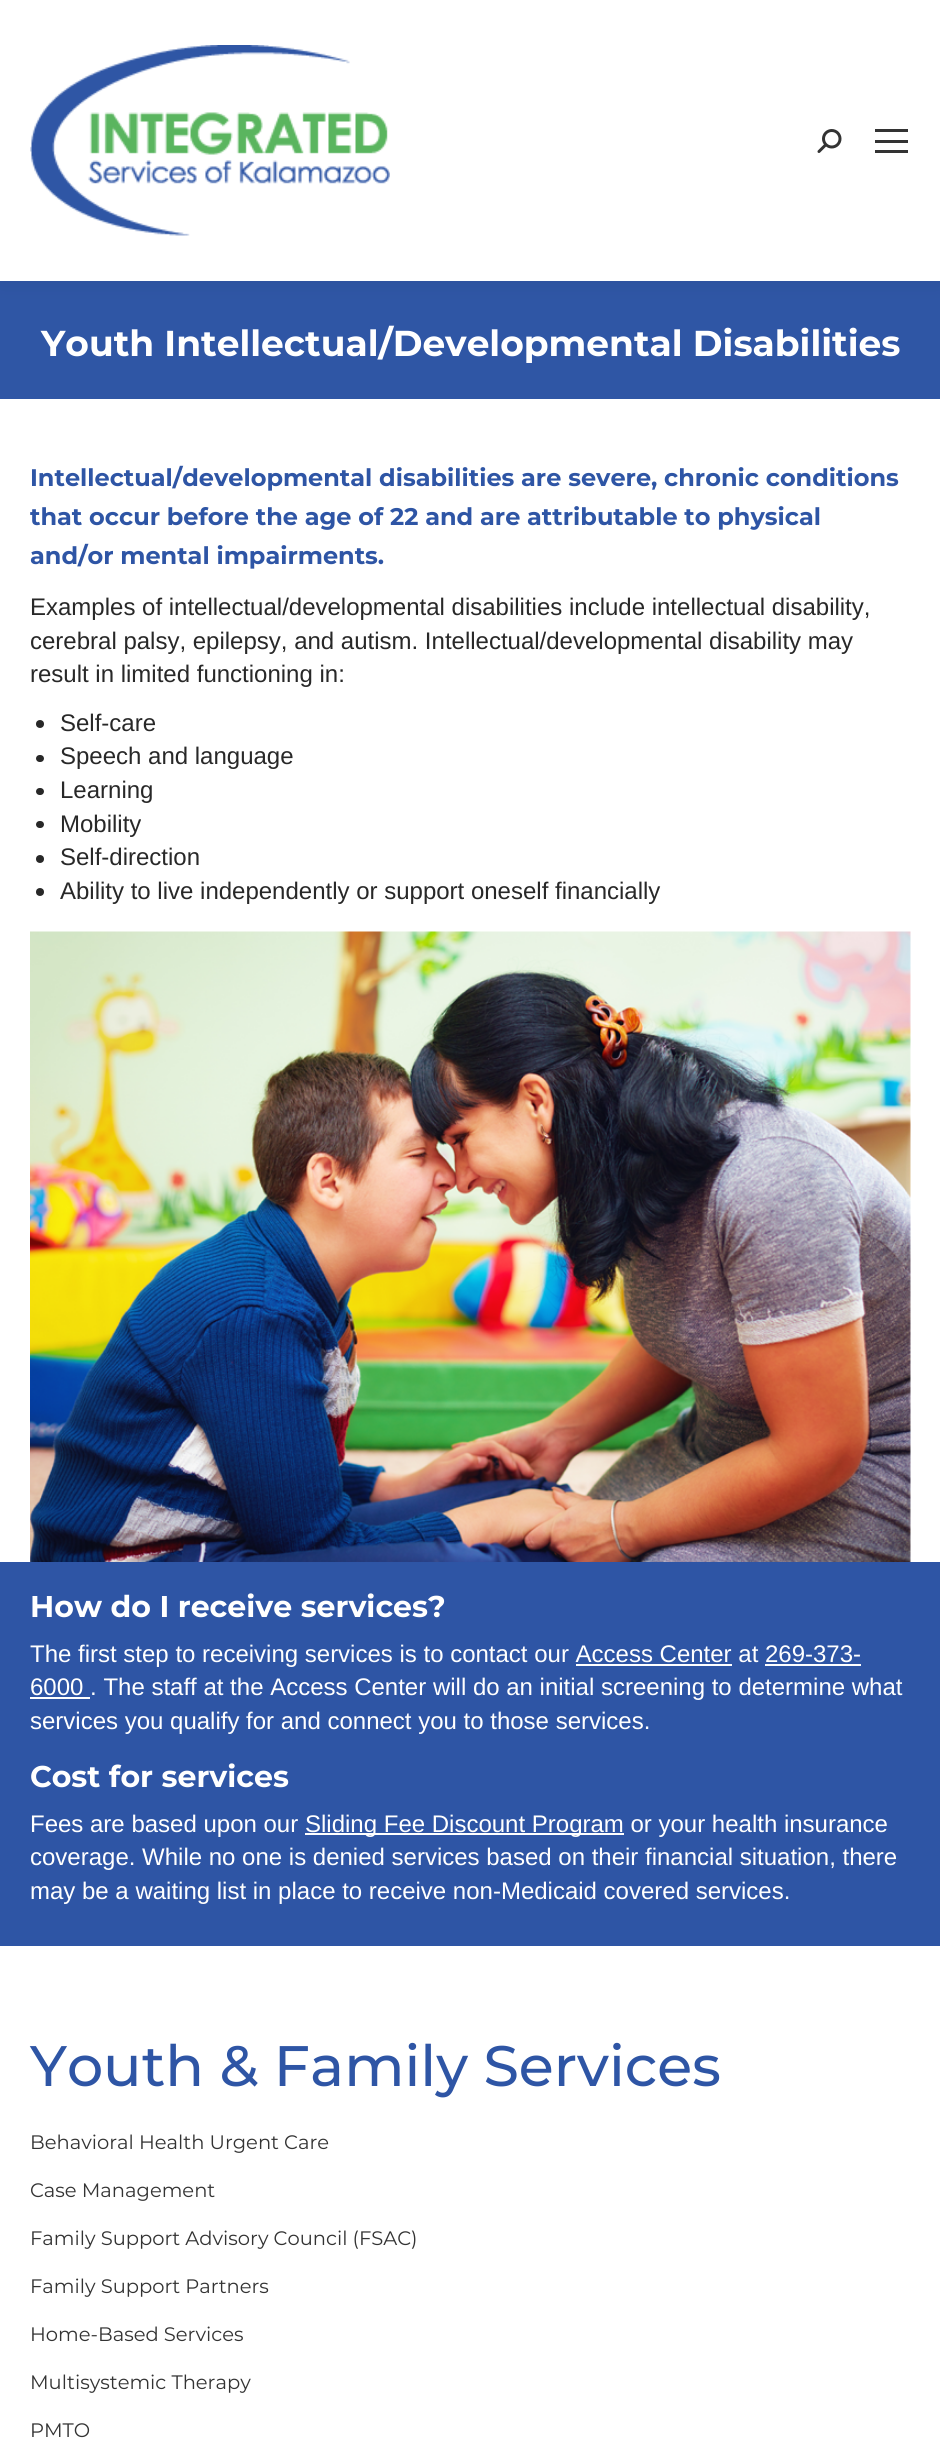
import math
import cairo

surface = cairo.ImageSurface(cairo.Format.RGB24, 940, 2443)
ctx = cairo.Context(surface)
options = cairo.FontOptions()
options.set_hint_metrics(cairo.HintMetrics.OFF)
options.set_hint_style(cairo.HintStyle.NONE)
ctx.set_font_options(options)
ctx.set_miter_limit(4)


def ink(r, g, b):
    ctx.set_source_rgb(r / 255, g / 255, b / 255)


def write(x, y, s, family, size, color, bold=False, italic=False):
    ctx.select_font_face(family, cairo.FontSlant.ITALIC if italic else cairo.FontSlant.NORMAL, cairo.FontWeight.BOLD if bold else cairo.FontWeight.NORMAL)
    ctx.set_font_size(size)
    ink(*color)
    ctx.move_to(x, y)
    ctx.show_text(s)


def block(x, y, w, h, *color):
    ink(*color)
    ctx.rectangle(x, y, w, h)
    ctx.fill()


def round_path(x, y, w, h, r):
    ctx.new_sub_path()
    for i, (u, v) in enumerate([(x + w - r, y + h - r), (x + r, y + h - r), (x + r, y + r), (x + w - r, y + r)]):
        ctx.arc(u, v, r, i * math.pi / 2, (i + 1) * math.pi / 2)
    ctx.close_path()


def blur_box(x, y, w, h, r, blur, alpha):
    ctx.push_group_with_content(cairo.Content.ALPHA)
    ctx.set_operator(cairo.Operator.SOURCE)
    for i in range(15, -16, -2):
        e = blur * i / 6
        if min(w, h) + 2 * e > 0:
            ctx.set_source_rgba(0, 0, 0, alpha * math.erfc((i - 1) / 8.5) / 2)
            round_path(x - e, y - e, w + 2 * e, h + 2 * e, max(0, min(r + e + blur * .6, min(w, h) / 2 + e)))
            ctx.fill()
    ctx.mask(ctx.pop_group())


def paste(path, x, y, w, h):
    ctx.save()
    ctx.set_source_surface(cairo.ImageSurface.create_from_png(path), x, y)
    ctx.rectangle(x, y, w, h)
    ctx.fill()
    ctx.restore()


s1 = dict(family="Montserrat", size=36, color=(255, 255, 255), bold=True)
s2 = dict(family="Montserrat", size=24, color=(46, 85, 165), bold=True)
s3 = dict(family="Liberation Sans", size=24, color=(40, 40, 40))
s4 = dict(family="Montserrat", size=30, color=(255, 255, 255), bold=True)
s5 = dict(family="Liberation Sans", size=24, color=(255, 255, 255))
s6 = dict(family="Montserrat Medium", size=57, color=(46, 85, 165))
s7 = dict(family="Montserrat", size=19.5, color=(51, 51, 51))

ink(255, 255, 255)
ctx.paint()
block(0, 281, 940, 118, 47, 86, 165)
ink(0, 0, 0)
blur_box(-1, -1, 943, 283, 0, 11, 0.07)
block(0, 0, 940, 281, 255, 255, 255)
paste("pic1.png", 30, 45, 360, 191)
paste("pic2.png", 817, 129, 25, 24)
block(875, 129, 33, 3, 51, 51, 51)
block(875, 140, 33, 3, 51, 51, 51)
block(875, 150, 33, 3, 51, 51, 51)
write(41, 356, "Youth Intellectual/Developmental Disabilities", **s1)
write(30, 486, "Intellectual/developmental disabilities are severe, chronic conditions", **s2)
write(30, 525, "that occur before the age of 22 and are attributable to physical", **s2)
write(30, 564, "and/or mental impairments.", **s2)
write(30, 615, "Examples of intellectual/developmental disabilities include intellectual disability,", **s3)
write(30, 649, "cerebral palsy, epilepsy, and autism. Intellectual/developmental disability may", **s3)
write(30, 682, "result in limited functioning in:", **s3)
ctx.new_path()
ctx.arc(40, 724, 4, 0, 2 * math.pi)
ctx.fill()
write(60, 731, "Self-care", **s3)
round_path(36, 755, 8, 7, 3.5)
ctx.fill()
write(60, 764, "Speech and language", **s3)
round_path(36, 788, 8, 7, 3.5)
ctx.fill()
write(60, 798, "Learning", **s3)
round_path(36, 821, 8, 7, 3.5)
ctx.fill()
write(60, 832, "Mobility", **s3)
ctx.new_path()
ctx.arc(40, 859, 4, 0, 2 * math.pi)
ctx.fill()
write(60, 865, "Self-direction", **s3)
ctx.new_path()
ctx.arc(40, 892, 4, 0, 2 * math.pi)
ctx.fill()
write(60, 899, "Ability to live independently or support oneself financially", **s3)
paste("pic3.png", 30, 931, 881, 631)
block(0, 1562, 940, 384, 46, 85, 165)
write(30, 1617, "How do I receive services?", **s4)
write(30, 1662, "The first step to receiving services is to contact our Access Center at 269-373-", **s5)
block(576, 1664, 156, 2, 255, 255, 255)
block(765, 1664, 96, 2, 255, 255, 255)
block(30, 1697, 60, 2, 255, 255, 255)
write(30, 1695, "6000 . The staff at the Access Center will do an initial screening to determine what", **s5)
write(30, 1729, "services you qualify for and connect you to those services.", **s5)
write(30, 1787, "Cost for services", **s4)
write(30, 1832, "Fees are based upon our", **s5)
block(305, 1833, 319, 2, 255, 255, 255)
write(305, 1832, "Sliding Fee Discount Program or your health insurance", **s5)
write(30, 1865, "coverage. While no one is denied services based on their financial situation, there", **s5)
write(30, 1899, "may be a waiting list in place to receive non-Medicaid covered services.", **s5)
write(30, 2086, "Youth & Family Services", **s6)
write(30, 2149, "Behavioral Health Urgent Care", **s7)
write(30, 2197, "Case Management", **s7)
write(30, 2245, "Family Support Advisory Council (FSAC)", **s7)
write(30, 2293, "Family Support Partners", **s7)
write(30, 2341, "Home-Based Services", **s7)
write(30, 2389, "Multisystemic Therapy", **s7)
write(30, 2437, "PMTO", **s7)
surface.write_to_png("screenshot.png")
